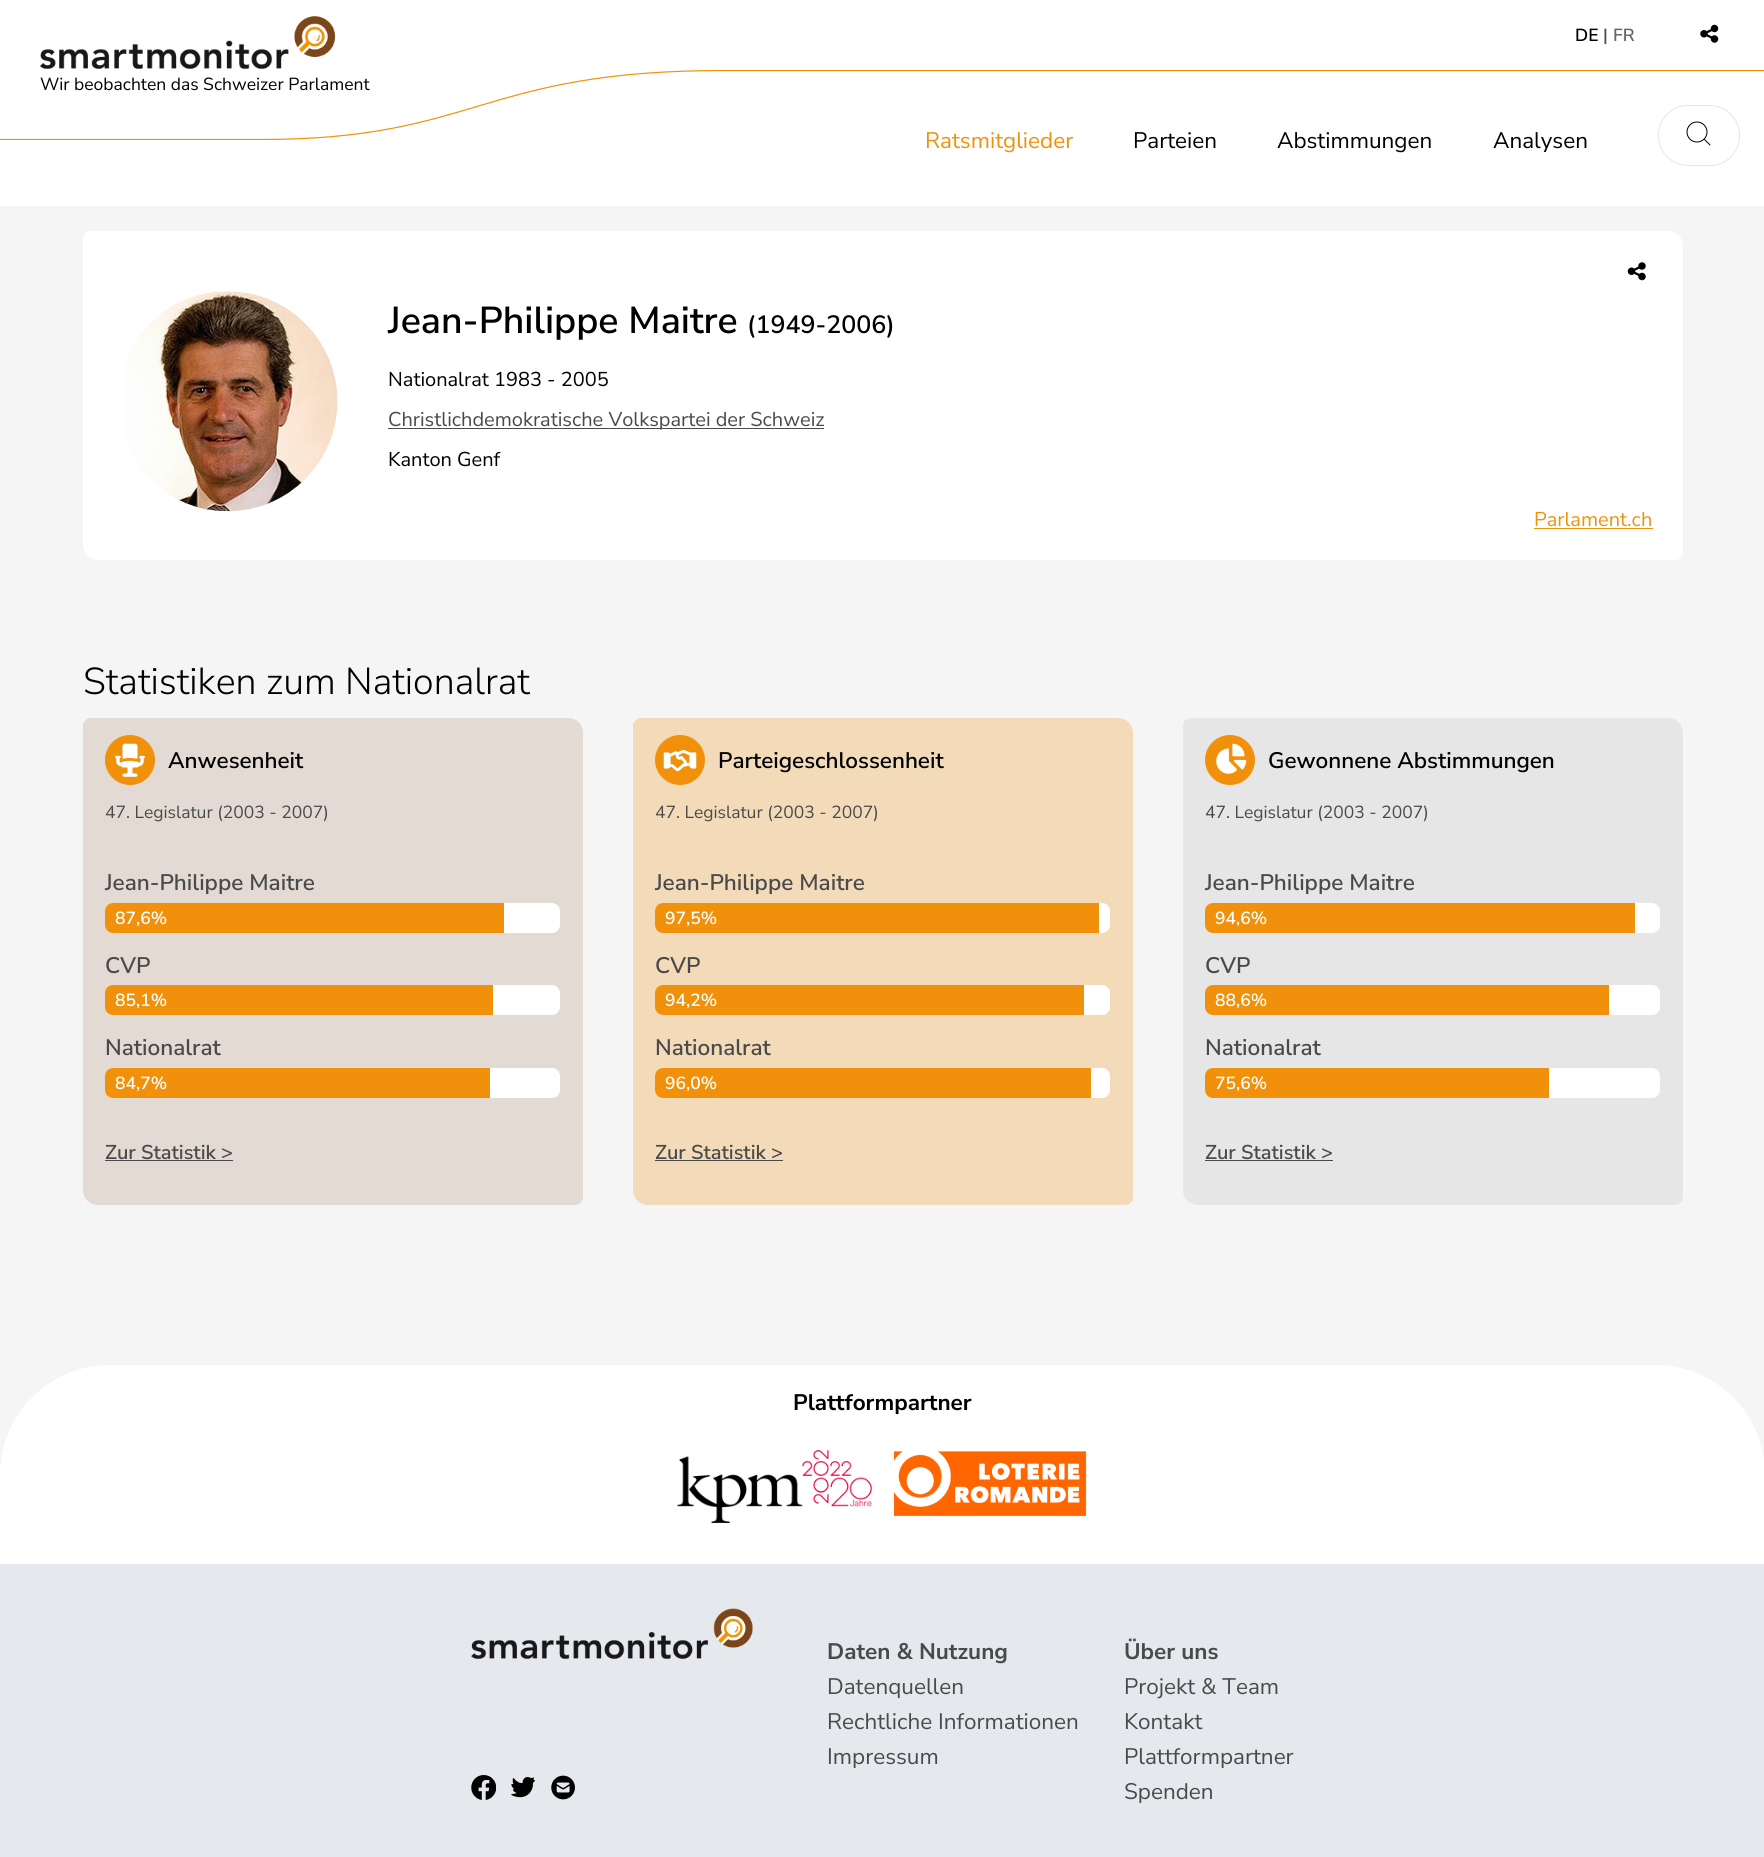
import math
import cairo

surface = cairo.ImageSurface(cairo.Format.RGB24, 1764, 1857)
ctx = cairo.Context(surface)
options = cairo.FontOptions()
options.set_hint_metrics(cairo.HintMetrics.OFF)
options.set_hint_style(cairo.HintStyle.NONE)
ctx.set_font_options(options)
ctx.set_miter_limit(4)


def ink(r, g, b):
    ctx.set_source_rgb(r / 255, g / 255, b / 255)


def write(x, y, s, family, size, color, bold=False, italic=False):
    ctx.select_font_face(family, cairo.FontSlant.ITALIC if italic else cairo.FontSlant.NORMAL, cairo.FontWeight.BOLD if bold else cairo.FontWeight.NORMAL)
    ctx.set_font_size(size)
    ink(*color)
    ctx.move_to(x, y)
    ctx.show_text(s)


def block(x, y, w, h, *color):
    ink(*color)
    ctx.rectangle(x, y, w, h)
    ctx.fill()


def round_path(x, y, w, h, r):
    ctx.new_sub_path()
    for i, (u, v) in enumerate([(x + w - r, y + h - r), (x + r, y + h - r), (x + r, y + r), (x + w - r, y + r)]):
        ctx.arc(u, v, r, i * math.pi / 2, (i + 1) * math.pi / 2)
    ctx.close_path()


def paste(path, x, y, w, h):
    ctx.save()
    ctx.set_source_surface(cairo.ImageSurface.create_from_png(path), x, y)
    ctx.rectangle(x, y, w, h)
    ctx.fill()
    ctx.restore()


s1 = dict(family="Nunito Sans SemiBold", size=17.5, color=(0, 0, 0))
s2 = dict(family="Nunito Sans SemiBold", size=17.5, color=(74, 74, 74))
s3 = dict(family="Nunito Sans SemiBold", size=17.5, color=(100, 100, 100))
s4 = dict(family="Nunito Sans", size=17.5, color=(0, 0, 0))
s5 = dict(family="Nunito Sans", size=22.5, color=(241, 145, 11))
s6 = dict(family="Nunito Sans", size=22.5, color=(0, 0, 0))
s7 = dict(family="Nunito Sans SemiBold", size=37.5, color=(0, 0, 0))
s8 = dict(family="Nunito Sans SemiBold", size=25, color=(0, 0, 0))
s9 = dict(family="Nunito Sans", size=20, color=(0, 0, 0))
s10 = dict(family="Nunito Sans", size=20, color=(74, 74, 74))
s11 = dict(family="Nunito Sans", size=20, color=(241, 145, 11))
s12 = dict(family="Nunito Sans Light", size=37.5, color=(0, 0, 0))
s13 = dict(family="Nunito Sans SemiBold", size=22.5, color=(0, 0, 0))
s14 = dict(family="Nunito Sans", size=17.5, color=(74, 74, 74))
s15 = dict(family="Nunito Sans SemiBold", size=22.5, color=(74, 74, 74))
s16 = dict(family="Nunito Sans SemiBold", size=17.5, color=(255, 255, 255))
s17 = dict(family="Nunito Sans SemiBold", size=20, color=(74, 74, 74))
s18 = dict(family="Nunito Sans", size=22.5, color=(0, 0, 0), bold=True)
s19 = dict(family="Nunito Sans", size=22.5, color=(74, 74, 74), bold=True)
s20 = dict(family="Nunito Sans", size=22.5, color=(74, 74, 74))

ink(245, 245, 245)
ctx.paint()
block(0, 0, 1764, 206, 255, 255, 255)
write(1575, 41, "DE", **s1)
write(1603, 41, "|", **s2)
write(1613, 41, "FR", **s3)
paste("pic1.png", 1700, 24, 19, 19)
round_path(1658.5, 105.5, 81, 60, 29.5)
ink(230, 230, 230)
ctx.set_line_width(1)
ctx.stroke()
ctx.arc(1697, 132, 10, 0, 2 * math.pi)
ink(0, 0, 0)
ctx.stroke()
ctx.new_path()
ctx.move_to(1710, 145)
ctx.line_to(1704.5, 139.5)
ctx.set_line_cap(cairo.LineCap.ROUND)
ctx.set_line_join(cairo.LineJoin.ROUND)
ctx.stroke()
ctx.save()
ctx.rectangle(0, 70, 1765, 70)
ctx.clip()
ctx.new_path()
ctx.move_to(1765, 70.5)
ctx.line_to(724.5, 70.5)
ctx.curve_to(478.5, 70.5, 478.5, 139.5, 260, 139.5)
ctx.line_to(0, 139.5)
ink(241, 145, 11)
ctx.set_line_width(1.2)
ctx.set_line_cap(cairo.LineCap.BUTT)
ctx.set_line_join(cairo.LineJoin.MITER)
ctx.stroke()
ctx.restore()
paste("pic2.png", 40, 16, 295, 53)
write(40, 90, "Wir beobachten das Schweizer Parlament", **s4)
write(925, 148, "Ratsmitglieder", **s5)
write(1133, 148, "Parteien", **s6)
write(1277, 148, "Abstimmungen", **s6)
write(1493, 148, "Analysen", **s6)
ink(255, 255, 255)
ctx.new_path()
ctx.move_to(91, 231)
ctx.line_to(1668, 231)
ctx.curve_to(1676.5, 231, 1683, 237.5, 1683, 246)
ctx.line_to(1683, 552)
ctx.curve_to(1683, 556.5, 1679.5, 560, 1675, 560)
ctx.line_to(98, 560)
ctx.curve_to(89.5, 560, 83, 553.5, 83, 545)
ctx.line_to(83, 239)
ctx.curve_to(83, 234.5, 86.5, 231, 91, 231)
ctx.close_path()
ctx.fill()
paste("pic3.png", 125, 291, 213, 221)
paste("pic4.png", 1627, 262, 19, 19)
write(388, 333, "Jean-Philippe Maitre", **s7)
write(747, 333, "(1949-2006)", **s8)
write(388, 386, "Nationalrat 1983 - 2005", **s9)
block(388, 428, 436, 1, 74, 74, 74)
write(388, 426, "Christlichdemokratische Volkspartei der Schweiz", **s10)
write(388, 466, "Kanton Genf", **s9)
write(1534, 526, "Parlament.ch", **s11)
block(1534, 528, 119, 1, 241, 145, 11)
write(83, 694, "Statistiken zum Nationalrat", **s12)
ink(226, 218, 211)
ctx.new_path()
ctx.move_to(91, 718)
ctx.line_to(568, 718)
ctx.curve_to(576.5, 718, 583, 724.5, 583, 733)
ctx.line_to(583, 1197)
ctx.curve_to(583, 1201.5, 579.5, 1205, 575, 1205)
ctx.line_to(98, 1205)
ctx.curve_to(89.5, 1205, 83, 1198.5, 83, 1190)
ctx.line_to(83, 726)
ctx.curve_to(83, 721.5, 86.5, 718, 91, 718)
ctx.close_path()
ctx.fill()
ink(241, 145, 11)
ctx.arc(130, 760, 25, 0, 2 * math.pi)
ctx.fill()
paste("pic5.png", 115, 743, 30, 34)
write(168, 768, "Anwesenheit", **s13)
write(105, 818, "47. Legislatur (2003 - 2007)", **s14)
write(105, 890, "Jean-Philippe Maitre", **s15)
ink(255, 255, 255)
round_path(105, 903, 455, 30, 8)
ctx.fill()
ink(241, 145, 11)
ctx.new_path()
ctx.move_to(113, 903)
ctx.line_to(504, 903)
ctx.line_to(504, 933)
ctx.line_to(113, 933)
ctx.curve_to(108.5, 933, 105, 929.5, 105, 925)
ctx.line_to(105, 911)
ctx.curve_to(105, 906.5, 108.5, 903, 113, 903)
ctx.close_path()
ctx.fill()
write(115, 924, "87,6%", **s16)
write(105, 973, "CVP", **s15)
ink(255, 255, 255)
round_path(105, 985, 455, 30, 8)
ctx.fill()
ink(241, 145, 11)
ctx.new_path()
ctx.move_to(113, 985)
ctx.line_to(493, 985)
ctx.line_to(493, 1015)
ctx.line_to(113, 1015)
ctx.curve_to(108.5, 1015, 105, 1011.5, 105, 1007)
ctx.line_to(105, 993)
ctx.curve_to(105, 988.5, 108.5, 985, 113, 985)
ctx.close_path()
ctx.fill()
write(115, 1006, "85,1%", **s16)
write(105, 1055, "Nationalrat", **s15)
ink(255, 255, 255)
round_path(105, 1068, 455, 30, 8)
ctx.fill()
ink(241, 145, 11)
ctx.new_path()
ctx.move_to(113, 1068)
ctx.line_to(490, 1068)
ctx.line_to(490, 1098)
ctx.line_to(113, 1098)
ctx.curve_to(108.5, 1098, 105, 1094.5, 105, 1090)
ctx.line_to(105, 1076)
ctx.curve_to(105, 1071.5, 108.5, 1068, 113, 1068)
ctx.close_path()
ctx.fill()
write(115, 1089, "84,7%", **s16)
write(105, 1159, "Zur Statistik >", **s17)
block(105, 1160, 128, 1, 74, 74, 74)
ink(243, 219, 186)
ctx.new_path()
ctx.move_to(641, 718)
ctx.line_to(1118, 718)
ctx.curve_to(1126.5, 718, 1133, 724.5, 1133, 733)
ctx.line_to(1133, 1197)
ctx.curve_to(1133, 1201.5, 1129.5, 1205, 1125, 1205)
ctx.line_to(648, 1205)
ctx.curve_to(639.5, 1205, 633, 1198.5, 633, 1190)
ctx.line_to(633, 726)
ctx.curve_to(633, 721.5, 636.5, 718, 641, 718)
ctx.close_path()
ctx.fill()
ink(241, 145, 11)
ctx.arc(680, 760, 25, 0, 2 * math.pi)
ctx.fill()
paste("pic6.png", 663, 750, 34, 22)
write(718, 768, "Parteigeschlossenheit", **s13)
write(655, 818, "47. Legislatur (2003 - 2007)", **s14)
write(655, 890, "Jean-Philippe Maitre", **s15)
ink(255, 255, 255)
round_path(655, 903, 455, 30, 8)
ctx.fill()
ink(241, 145, 11)
ctx.new_path()
ctx.move_to(663, 903)
ctx.line_to(1099, 903)
ctx.line_to(1099, 933)
ctx.line_to(663, 933)
ctx.curve_to(658.5, 933, 655, 929.5, 655, 925)
ctx.line_to(655, 911)
ctx.curve_to(655, 906.5, 658.5, 903, 663, 903)
ctx.close_path()
ctx.fill()
write(665, 924, "97,5%", **s16)
write(655, 973, "CVP", **s15)
ink(255, 255, 255)
round_path(655, 985, 455, 30, 8)
ctx.fill()
ink(241, 145, 11)
ctx.new_path()
ctx.move_to(663, 985)
ctx.line_to(1084, 985)
ctx.line_to(1084, 1015)
ctx.line_to(663, 1015)
ctx.curve_to(658.5, 1015, 655, 1011.5, 655, 1007)
ctx.line_to(655, 993)
ctx.curve_to(655, 988.5, 658.5, 985, 663, 985)
ctx.close_path()
ctx.fill()
write(665, 1006, "94,2%", **s16)
write(655, 1055, "Nationalrat", **s15)
ink(255, 255, 255)
round_path(655, 1068, 455, 30, 8)
ctx.fill()
ink(241, 145, 11)
ctx.new_path()
ctx.move_to(663, 1068)
ctx.line_to(1091, 1068)
ctx.line_to(1091, 1098)
ctx.line_to(663, 1098)
ctx.curve_to(658.5, 1098, 655, 1094.5, 655, 1090)
ctx.line_to(655, 1076)
ctx.curve_to(655, 1071.5, 658.5, 1068, 663, 1068)
ctx.close_path()
ctx.fill()
write(665, 1089, "96,0%", **s16)
write(655, 1159, "Zur Statistik >", **s17)
block(655, 1160, 128, 1, 74, 74, 74)
ink(230, 230, 230)
ctx.new_path()
ctx.move_to(1191, 718)
ctx.line_to(1668, 718)
ctx.curve_to(1676.5, 718, 1683, 724.5, 1683, 733)
ctx.line_to(1683, 1197)
ctx.curve_to(1683, 1201.5, 1679.5, 1205, 1675, 1205)
ctx.line_to(1198, 1205)
ctx.curve_to(1189.5, 1205, 1183, 1198.5, 1183, 1190)
ctx.line_to(1183, 726)
ctx.curve_to(1183, 721.5, 1186.5, 718, 1191, 718)
ctx.close_path()
ctx.fill()
ink(241, 145, 11)
ctx.arc(1230, 760, 25, 0, 2 * math.pi)
ctx.fill()
paste("pic7.png", 1216, 743, 31, 31)
write(1268, 768, "Gewonnene Abstimmungen", **s13)
write(1205, 818, "47. Legislatur (2003 - 2007)", **s14)
write(1205, 890, "Jean-Philippe Maitre", **s15)
ink(255, 255, 255)
round_path(1205, 903, 455, 30, 8)
ctx.fill()
ink(241, 145, 11)
ctx.new_path()
ctx.move_to(1213, 903)
ctx.line_to(1635, 903)
ctx.line_to(1635, 933)
ctx.line_to(1213, 933)
ctx.curve_to(1208.5, 933, 1205, 929.5, 1205, 925)
ctx.line_to(1205, 911)
ctx.curve_to(1205, 906.5, 1208.5, 903, 1213, 903)
ctx.close_path()
ctx.fill()
write(1215, 924, "94,6%", **s16)
write(1205, 973, "CVP", **s15)
ink(255, 255, 255)
round_path(1205, 985, 455, 30, 8)
ctx.fill()
ink(241, 145, 11)
ctx.new_path()
ctx.move_to(1213, 985)
ctx.line_to(1609, 985)
ctx.line_to(1609, 1015)
ctx.line_to(1213, 1015)
ctx.curve_to(1208.5, 1015, 1205, 1011.5, 1205, 1007)
ctx.line_to(1205, 993)
ctx.curve_to(1205, 988.5, 1208.5, 985, 1213, 985)
ctx.close_path()
ctx.fill()
write(1215, 1006, "88,6%", **s16)
write(1205, 1055, "Nationalrat", **s15)
ink(255, 255, 255)
round_path(1205, 1068, 455, 30, 8)
ctx.fill()
ink(241, 145, 11)
ctx.new_path()
ctx.move_to(1213, 1068)
ctx.line_to(1549, 1068)
ctx.line_to(1549, 1098)
ctx.line_to(1213, 1098)
ctx.curve_to(1208.5, 1098, 1205, 1094.5, 1205, 1090)
ctx.line_to(1205, 1076)
ctx.curve_to(1205, 1071.5, 1208.5, 1068, 1213, 1068)
ctx.close_path()
ctx.fill()
write(1215, 1089, "75,6%", **s16)
write(1205, 1159, "Zur Statistik >", **s17)
block(1205, 1160, 128, 1, 74, 74, 74)
ink(255, 255, 255)
ctx.new_path()
ctx.move_to(110, 1365)
ctx.line_to(1655, 1365)
ctx.curve_to(1716, 1365, 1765, 1414, 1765, 1475)
ctx.line_to(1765, 1564)
ctx.line_to(0, 1564)
ctx.line_to(0, 1475)
ctx.curve_to(0, 1414, 49, 1365, 110, 1365)
ctx.close_path()
ctx.fill()
write(793, 1410, "Plattformpartner", **s18)
paste("pic8.png", 677, 1450, 195, 73)
paste("pic9.png", 893, 1451, 194, 66)
block(0, 1564, 1764, 293, 229, 233, 237)
paste("pic10.png", 471, 1608, 282, 51)
paste("pic11.png", 471, 1775, 25, 25)
paste("pic12.png", 511, 1777, 24, 21)
paste("pic13.png", 551, 1775, 24, 25)
write(827, 1659, "Daten & Nutzung", **s19)
write(827, 1694, "Datenquellen", **s20)
write(827, 1729, "Rechtliche Informationen", **s20)
write(827, 1764, "Impressum", **s20)
write(1124, 1659, "Über uns", **s19)
write(1124, 1694, "Projekt & Team", **s20)
write(1124, 1729, "Kontakt", **s20)
write(1124, 1764, "Plattformpartner", **s20)
write(1124, 1799, "Spenden", **s20)
surface.write_to_png("screenshot.png")
